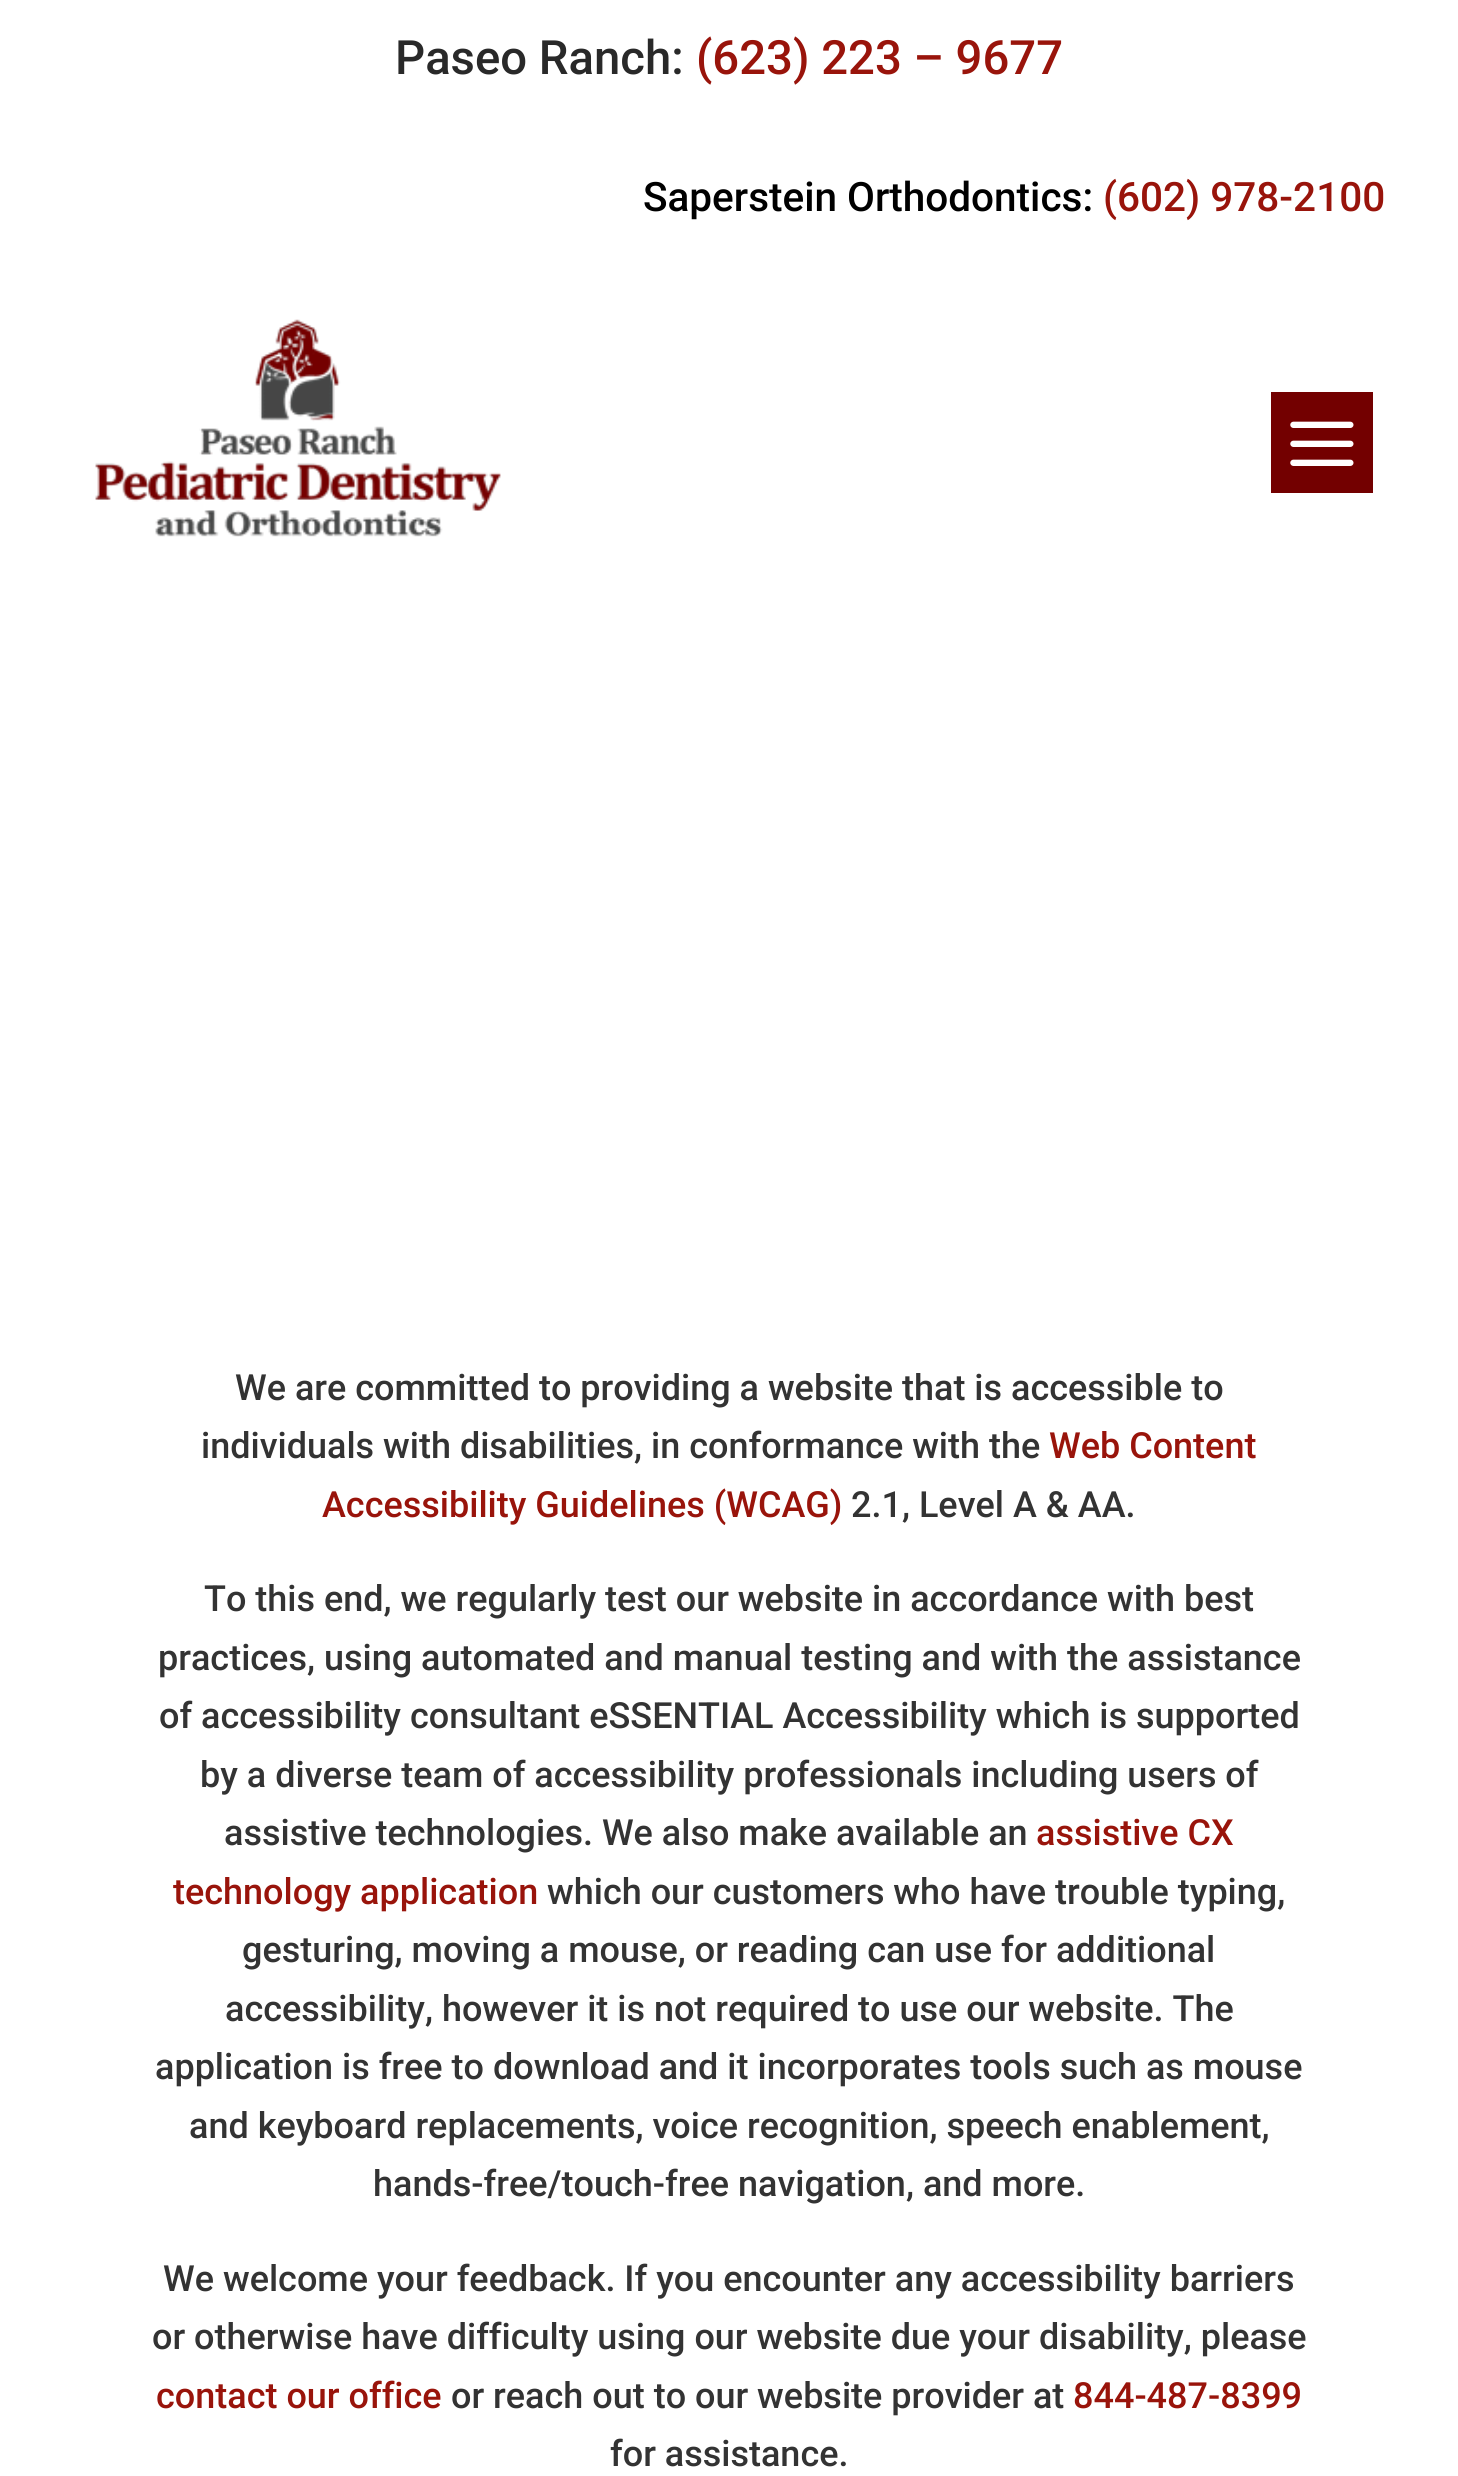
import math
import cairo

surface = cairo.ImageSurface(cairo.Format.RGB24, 1458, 2476)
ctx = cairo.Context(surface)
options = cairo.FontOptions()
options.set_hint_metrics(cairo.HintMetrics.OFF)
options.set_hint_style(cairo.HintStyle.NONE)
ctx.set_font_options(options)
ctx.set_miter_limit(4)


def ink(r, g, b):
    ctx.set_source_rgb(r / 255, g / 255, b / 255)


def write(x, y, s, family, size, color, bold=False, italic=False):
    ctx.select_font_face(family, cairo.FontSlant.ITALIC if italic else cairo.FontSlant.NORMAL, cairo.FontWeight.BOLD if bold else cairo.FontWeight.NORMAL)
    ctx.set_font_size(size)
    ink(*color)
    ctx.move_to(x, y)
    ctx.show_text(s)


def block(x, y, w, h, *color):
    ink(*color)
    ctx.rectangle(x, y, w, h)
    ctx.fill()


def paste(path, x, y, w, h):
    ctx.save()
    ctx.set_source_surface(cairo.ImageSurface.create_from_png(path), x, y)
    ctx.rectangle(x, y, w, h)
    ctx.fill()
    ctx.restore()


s1 = dict(family="Roboto Medium", size=47.25, color=(41, 41, 41))
s2 = dict(family="Roboto Medium", size=47.25, color=(153, 20, 11))
s3 = dict(family="Roboto Medium", size=40.5, color=(0, 0, 0))
s4 = dict(family="Roboto Medium", size=40.5, color=(153, 20, 11))
s5 = dict(family="Roboto Medium", size=36, color=(51, 51, 51))
s6 = dict(family="Roboto Medium", size=36, color=(153, 20, 11))

ink(255, 255, 255)
ctx.paint()
write(395, 74, "Paseo Ranch:", **s1)
write(696, 74, "(623) 223 – 9677", **s2)
write(643, 211, "Saperstein Orthodontics:", **s3)
write(1103, 211, "(602) 978-2100", **s4)
paste("pic1.png", 95, 319, 406, 218)
block(1271, 392, 102, 101, 115, 0, 0)
paste("pic2.png", 1290, 421, 64, 45)
write(235, 1400, "We are committed to providing a website that is accessible to", **s5)
write(201, 1458, "individuals with disabilities, in conformance with the", **s5)
write(1049, 1458, "Web Content", **s6)
write(322, 1517, "Accessibility Guidelines (WCAG)", **s6)
write(851, 1517, "2.1, Level A & AA.", **s5)
write(204, 1611, "To this end, we regularly test our website in accordance with best", **s5)
write(158, 1670, "practices, using automated and manual testing and with the assistance", **s5)
write(159, 1728, "of accessibility consultant eSSENTIAL Accessibility which is supported", **s5)
write(200, 1787, "by a diverse team of accessibility professionals including users of", **s5)
write(224, 1845, "assistive technologies. We also make available an", **s5)
write(1036, 1845, "assistive CX", **s6)
write(173, 1904, "technology application", **s6)
write(547, 1904, "which our customers who have trouble typing,", **s5)
write(242, 1962, "gesturing, moving a mouse, or reading can use for additional", **s5)
write(225, 2021, "accessibility, however it is not required to use our website. The", **s5)
write(155, 2079, "application is free to download and it incorporates tools such as mouse", **s5)
write(189, 2138, "and keyboard replacements, voice recognition, speech enablement,", **s5)
write(373, 2196, "hands-free/touch-free navigation, and more.", **s5)
write(163, 2291, "We welcome your feedback. If you encounter any accessibility barriers", **s5)
write(152, 2349, "or otherwise have difficulty using our website due your disability, please", **s5)
write(156, 2408, "contact our office", **s6)
write(451, 2408, "or reach out to our website provider at", **s5)
write(1073, 2408, "844-487-8399", **s6)
write(610, 2466, "for assistance.", **s5)
surface.write_to_png("screenshot.png")
